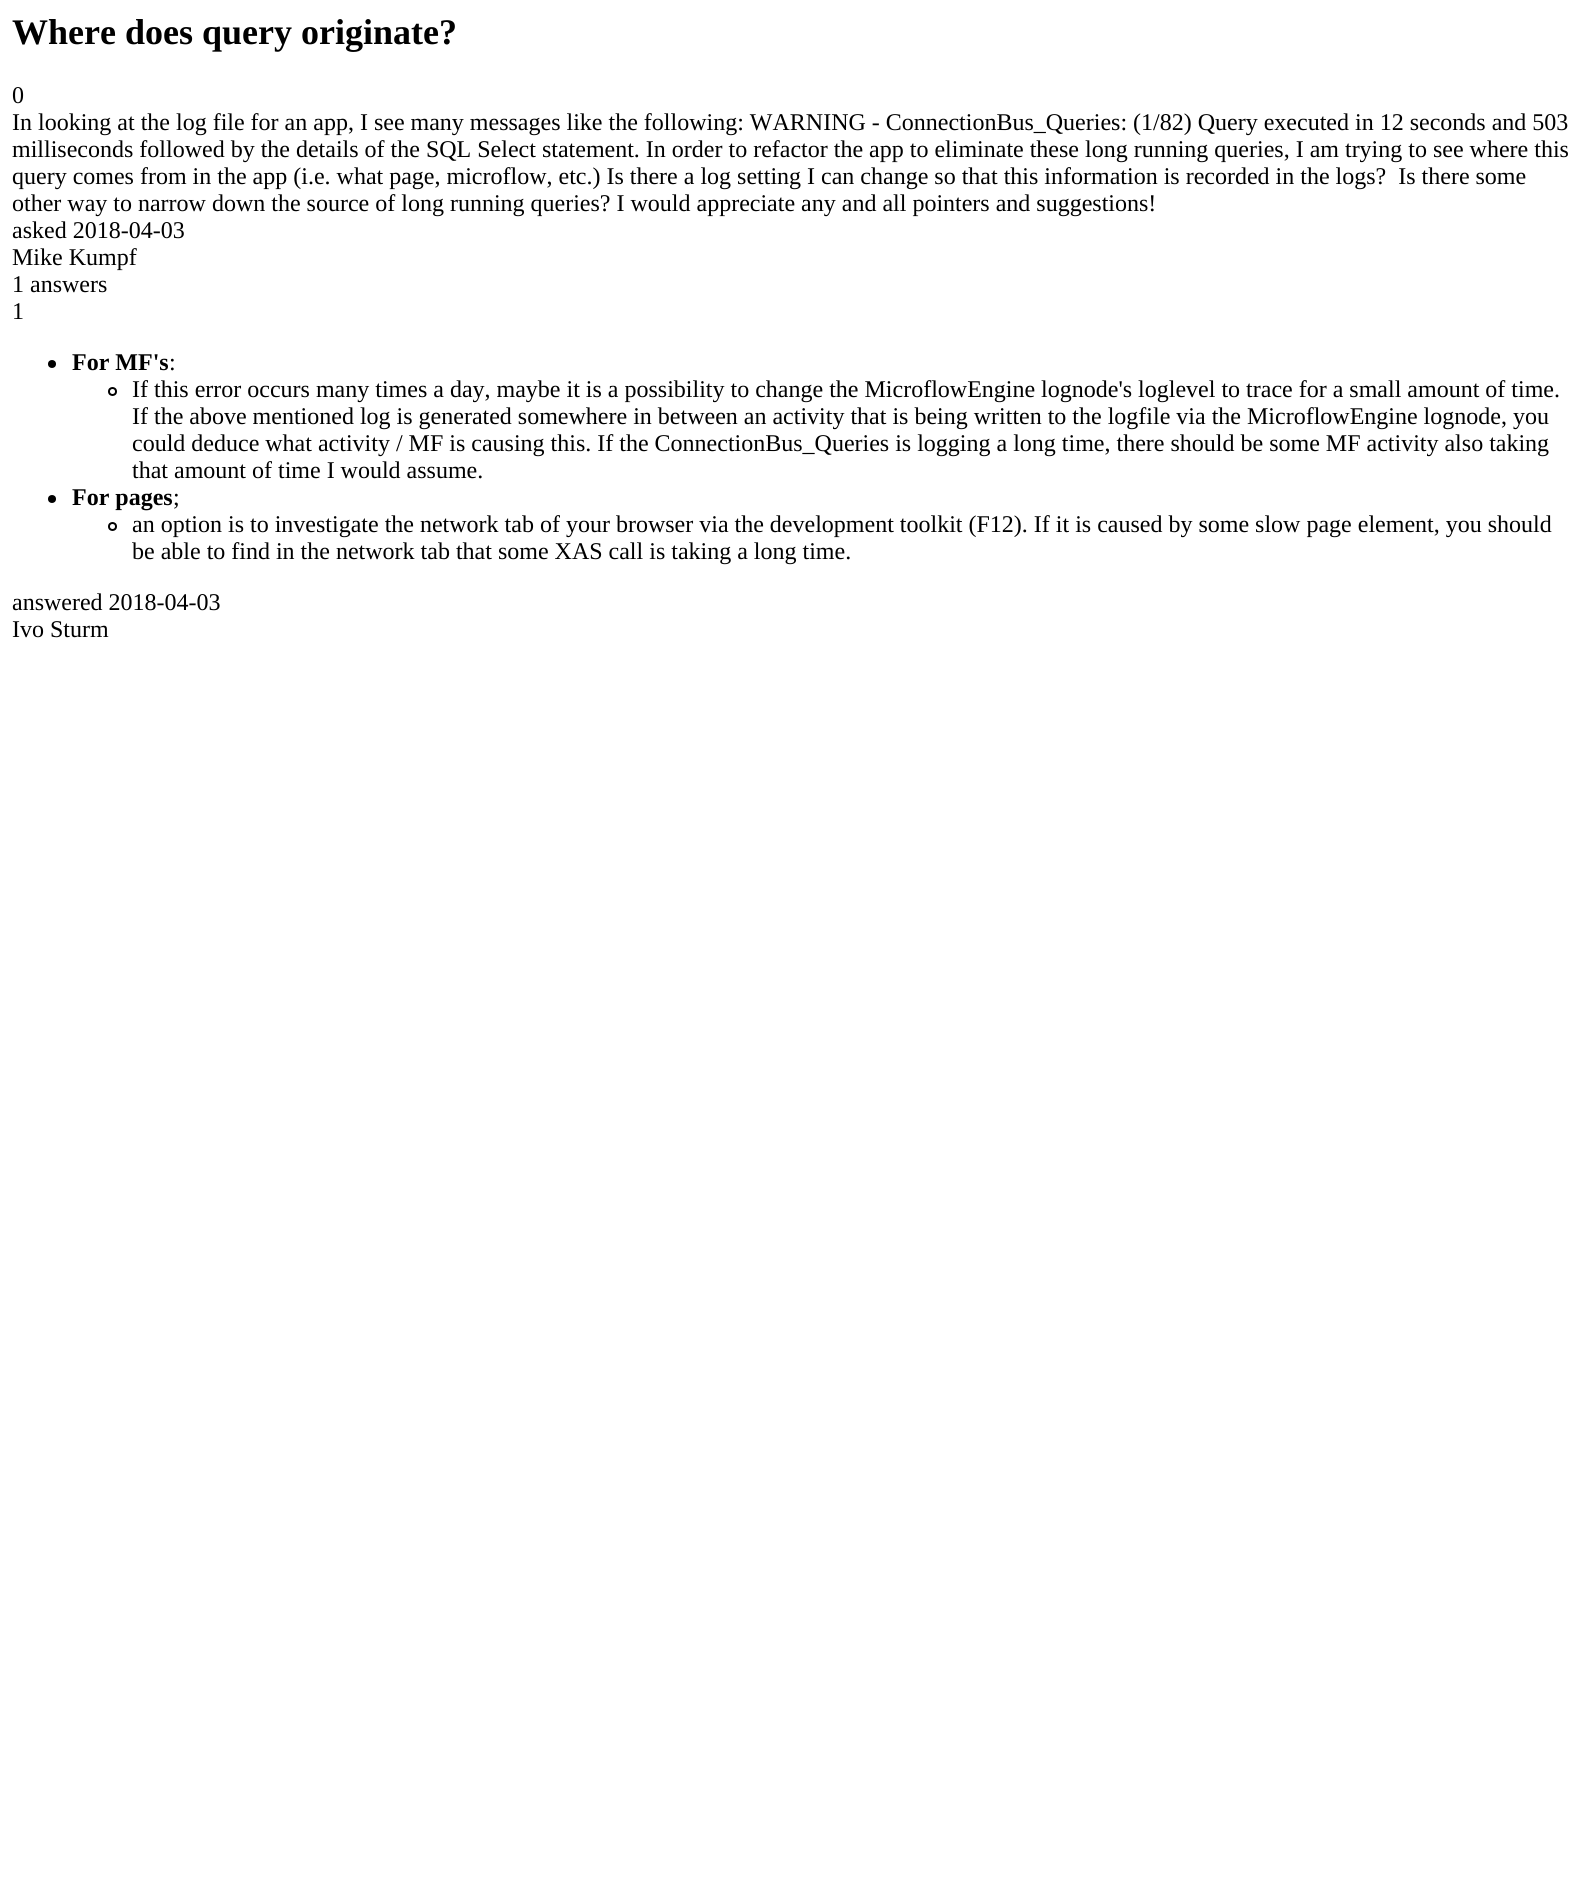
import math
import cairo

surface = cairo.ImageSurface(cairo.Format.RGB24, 1589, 1890)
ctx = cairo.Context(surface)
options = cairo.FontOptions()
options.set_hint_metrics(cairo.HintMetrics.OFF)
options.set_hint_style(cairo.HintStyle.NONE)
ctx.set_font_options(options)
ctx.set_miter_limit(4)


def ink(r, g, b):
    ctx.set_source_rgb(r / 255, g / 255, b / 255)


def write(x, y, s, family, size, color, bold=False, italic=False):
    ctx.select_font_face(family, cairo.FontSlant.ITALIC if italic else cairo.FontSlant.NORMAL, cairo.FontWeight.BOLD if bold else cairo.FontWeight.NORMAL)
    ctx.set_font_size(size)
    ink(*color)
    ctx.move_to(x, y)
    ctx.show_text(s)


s1 = dict(family="Liberation Serif", size=36, color=(0, 0, 0), bold=True)
s2 = dict(family="Liberation Serif", size=24, color=(0, 0, 0))
s3 = dict(family="Liberation Serif", size=24, color=(0, 0, 0), bold=True)

ink(255, 255, 255)
ctx.paint()
write(12, 44, "Where does query originate?", **s1)
write(12, 103, "0", **s2)
write(12, 130, "In looking at the log file for an app, I see many messages like the following: WARNING - ConnectionBus_Queries: (1/82) Query executed in 12 seconds and 503", **s2)
write(12, 157, "milliseconds followed by the details of the SQL Select statement. In order to refactor the app to eliminate these long running queries, I am trying to see where this", **s2)
write(12, 184, "query comes from in the app (i.e. what page, microflow, etc.) Is there a log setting I can change so that this information is recorded in the logs?  Is there some", **s2)
write(12, 211, "other way to narrow down the source of long running queries? I would appreciate any and all pointers and suggestions!", **s2)
write(12, 238, "asked 2018-04-03", **s2)
write(12, 265, "Mike Kumpf", **s2)
write(12, 292, "1 answers", **s2)
write(12, 319, "1", **s2)
ctx.new_path()
ctx.arc(52, 364, 4, 0, 2 * math.pi)
ctx.fill()
write(72, 370, "For MF's", **s3)
write(169, 370, ":", **s2)
ctx.new_path()
ctx.arc(112.5, 391.5, 3.5, 0, 2 * math.pi)
ctx.stroke()
write(132, 397, "If this error occurs many times a day, maybe it is a possibility to change the MicroflowEngine lognode's loglevel to trace for a small amount of time.", **s2)
write(132, 424, "If the above mentioned log is generated somewhere in between an activity that is being written to the logfile via the MicroflowEngine lognode, you", **s2)
write(132, 451, "could deduce what activity / MF is causing this. If the ConnectionBus_Queries is logging a long time, there should be some MF activity also taking", **s2)
write(132, 478, "that amount of time I would assume.", **s2)
ctx.new_path()
ctx.arc(52, 499, 4, 0, 2 * math.pi)
ctx.fill()
write(72, 505, "For pages", **s3)
write(173, 505, ";", **s2)
ctx.new_path()
ctx.arc(112.5, 526.5, 3.5, 0, 2 * math.pi)
ctx.stroke()
write(132, 532, "an option is to investigate the network tab of your browser via the development toolkit (F12). If it is caused by some slow page element, you should", **s2)
write(132, 559, "be able to find in the network tab that some XAS call is taking a long time.", **s2)
write(12, 610, "answered 2018-04-03", **s2)
write(12, 637, "Ivo Sturm", **s2)
surface.write_to_png("screenshot.png")
